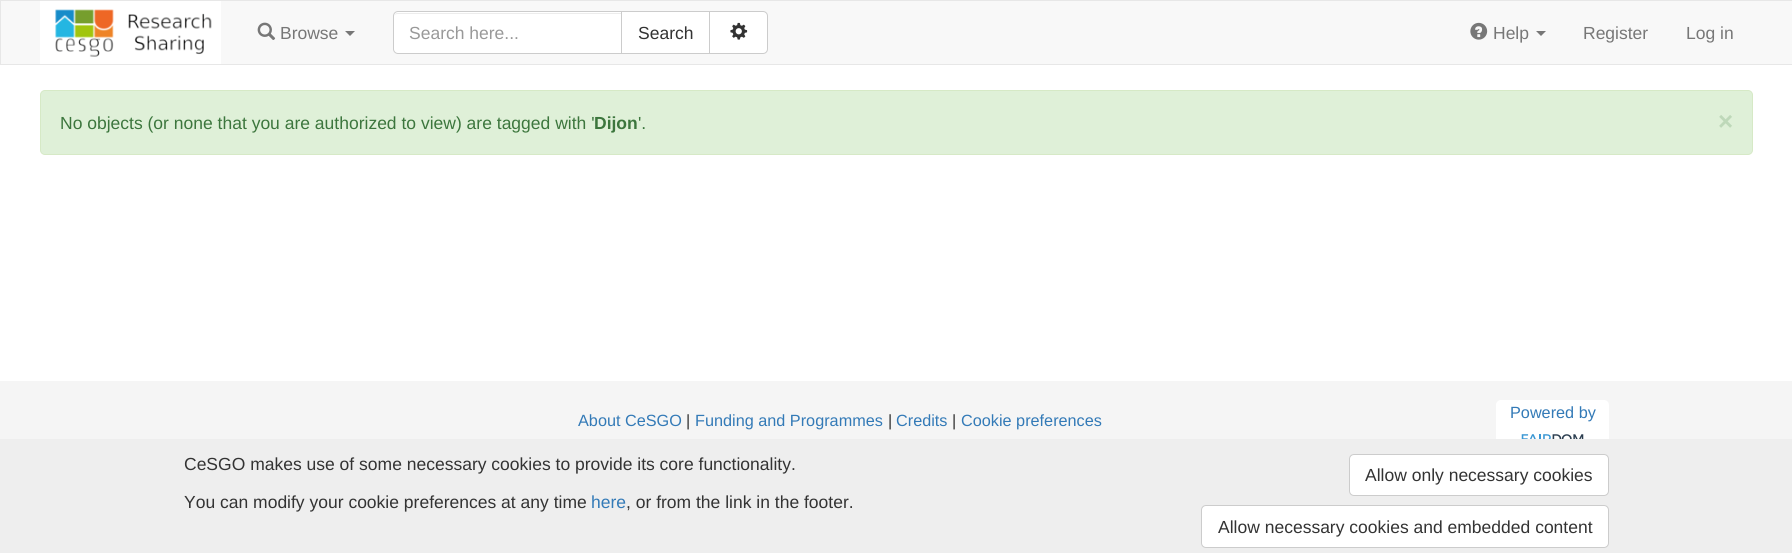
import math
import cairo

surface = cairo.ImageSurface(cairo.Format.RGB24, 1792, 553)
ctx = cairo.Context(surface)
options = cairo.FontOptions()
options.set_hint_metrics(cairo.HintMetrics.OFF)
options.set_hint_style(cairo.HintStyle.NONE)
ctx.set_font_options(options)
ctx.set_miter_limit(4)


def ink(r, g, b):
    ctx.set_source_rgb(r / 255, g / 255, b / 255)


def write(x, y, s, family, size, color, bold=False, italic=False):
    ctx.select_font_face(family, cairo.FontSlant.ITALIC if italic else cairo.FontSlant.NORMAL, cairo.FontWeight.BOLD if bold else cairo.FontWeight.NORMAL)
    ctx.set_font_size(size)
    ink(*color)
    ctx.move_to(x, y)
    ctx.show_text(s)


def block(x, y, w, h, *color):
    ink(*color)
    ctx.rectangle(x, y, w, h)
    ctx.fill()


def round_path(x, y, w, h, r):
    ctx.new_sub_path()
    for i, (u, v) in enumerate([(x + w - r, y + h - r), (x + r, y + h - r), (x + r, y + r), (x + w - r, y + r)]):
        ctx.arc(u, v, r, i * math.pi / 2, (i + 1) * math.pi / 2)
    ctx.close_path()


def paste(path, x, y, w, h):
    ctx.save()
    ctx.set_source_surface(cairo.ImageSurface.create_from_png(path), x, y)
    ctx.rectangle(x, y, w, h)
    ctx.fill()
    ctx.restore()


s1 = dict(family="Liberation Sans", size=17.5, color=(119, 119, 119))
s2 = dict(family="Liberation Sans", size=17.5, color=(153, 153, 153))
s3 = dict(family="Liberation Sans", size=17.5, color=(51, 51, 51))
s4 = dict(family="Liberation Sans", size=17.5, color=(60, 118, 61))
s5 = dict(family="Liberation Sans", size=17.5, color=(60, 118, 61), bold=True)
s6 = dict(family="Liberation Sans", size=26, color=(190, 216, 185), bold=True)
s7 = dict(family="Liberation Sans", size=16.25, color=(51, 122, 183))
s8 = dict(family="Liberation Sans", size=16.25, color=(51, 51, 51))
s9 = dict(family="Liberation Sans", size=17.5, color=(51, 122, 183))

ink(255, 255, 255)
ctx.paint()
ink(248, 248, 248)
ctx.rectangle(0.5, 0.5, 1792, 64)
ctx.fill_preserve()
ink(231, 231, 231)
ctx.set_line_width(1)
ctx.stroke()
block(40, 1, 181, 63, 255, 255, 255)
paste("pic1.png", 55, 9, 157, 48)
paste("pic2.png", 257, 22, 19, 18)
write(280, 39, "Browse", **s1)
ctx.new_path()
ctx.move_to(345, 31)
ctx.line_to(355, 31)
ctx.line_to(350, 36)
ctx.close_path()
ctx.fill()
ink(255, 255, 255)
ctx.new_path()
ctx.move_to(398, 11)
ctx.line_to(623, 11)
ctx.line_to(623, 54)
ctx.line_to(398, 54)
ctx.curve_to(395, 54, 393, 52, 393, 49)
ctx.line_to(393, 16)
ctx.curve_to(393, 13, 395, 11, 398, 11)
ctx.close_path()
ctx.fill()
ink(236, 236, 236)
ctx.new_path()
ctx.move_to(398, 14)
ctx.line_to(621, 14)
ctx.line_to(621, 13)
ctx.line_to(398, 13)
ctx.curve_to(395, 13, 394, 15, 394, 18)
ctx.curve_to(394, 15, 395, 14, 398, 14)
ctx.close_path()
ctx.fill()
ctx.new_path()
ctx.move_to(398, 11.5)
ctx.line_to(622.5, 11.5)
ctx.line_to(622.5, 53.5)
ctx.line_to(398, 53.5)
ctx.curve_to(395.5, 53.5, 393.5, 51.5, 393.5, 49)
ctx.line_to(393.5, 16)
ctx.curve_to(393.5, 13.5, 395.5, 11.5, 398, 11.5)
ctx.close_path()
ink(204, 204, 204)
ctx.stroke()
write(409, 39, "Search here...", **s2)
ink(255, 255, 255)
ctx.rectangle(621.5, 11.5, 88, 42)
ctx.fill_preserve()
ink(204, 204, 204)
ctx.stroke()
write(638, 39, "Search", **s3)
ink(255, 255, 255)
ctx.new_path()
ctx.move_to(709.5, 11.5)
ctx.line_to(763, 11.5)
ctx.curve_to(765.5, 11.5, 767.5, 13.5, 767.5, 16)
ctx.line_to(767.5, 49)
ctx.curve_to(767.5, 51.5, 765.5, 53.5, 763, 53.5)
ctx.line_to(709.5, 53.5)
ctx.close_path()
ctx.fill_preserve()
ink(204, 204, 204)
ctx.stroke()
paste("pic3.png", 730, 22, 18, 18)
paste("pic4.png", 1470, 22, 18, 18)
write(1493, 39, "Help", **s1)
ctx.new_path()
ctx.move_to(1536, 31)
ctx.line_to(1546, 31)
ctx.line_to(1541, 36)
ctx.close_path()
ctx.fill()
write(1583, 39, "Register", **s1)
write(1686, 39, "Log in", **s1)
ink(223, 240, 216)
round_path(40.5, 90.5, 1712, 64, 4.5)
ctx.fill_preserve()
ink(214, 233, 198)
ctx.stroke()
write(60, 129, "No objects (or none that you are authorized to view) are tagged with '", **s4)
write(594, 129, "Dijon", **s5)
write(638, 129, "'.", **s4)
write(1718, 130, "×", **s6)
block(0, 381, 1792, 58, 245, 245, 245)
write(578, 426, "About CeSGO", **s7)
write(686, 426, "|", **s8)
write(695, 426, "Funding and Programmes", **s7)
write(888, 426, "|", **s8)
write(896, 426, "Credits", **s7)
write(952, 426, "|", **s8)
write(961, 426, "Cookie preferences", **s7)
ink(255, 255, 255)
round_path(1496, 400, 113, 111, 5)
ctx.fill()
write(1510, 418, "Powered by", **s7)
paste("pic5.png", 1521, 434, 63, 5)
block(0, 439, 1792, 114, 238, 238, 238)
write(184, 470, "CeSGO makes use of some necessary cookies to provide its core functionality.", **s3)
write(184, 508, "You can modify your cookie preferences at any time", **s3)
write(591, 508, "here", **s9)
write(626, 508, ", or from the link in the footer.", **s3)
ink(255, 255, 255)
round_path(1349.5, 454.5, 259, 41, 4.5)
ctx.fill_preserve()
ink(204, 204, 204)
ctx.stroke()
write(1365, 481, "Allow only necessary cookies", **s3)
ink(255, 255, 255)
round_path(1201.5, 505.5, 407, 42, 4.5)
ctx.fill_preserve()
ink(204, 204, 204)
ctx.stroke()
write(1218, 533, "Allow necessary cookies and embedded content", **s3)
surface.write_to_png("screenshot.png")
